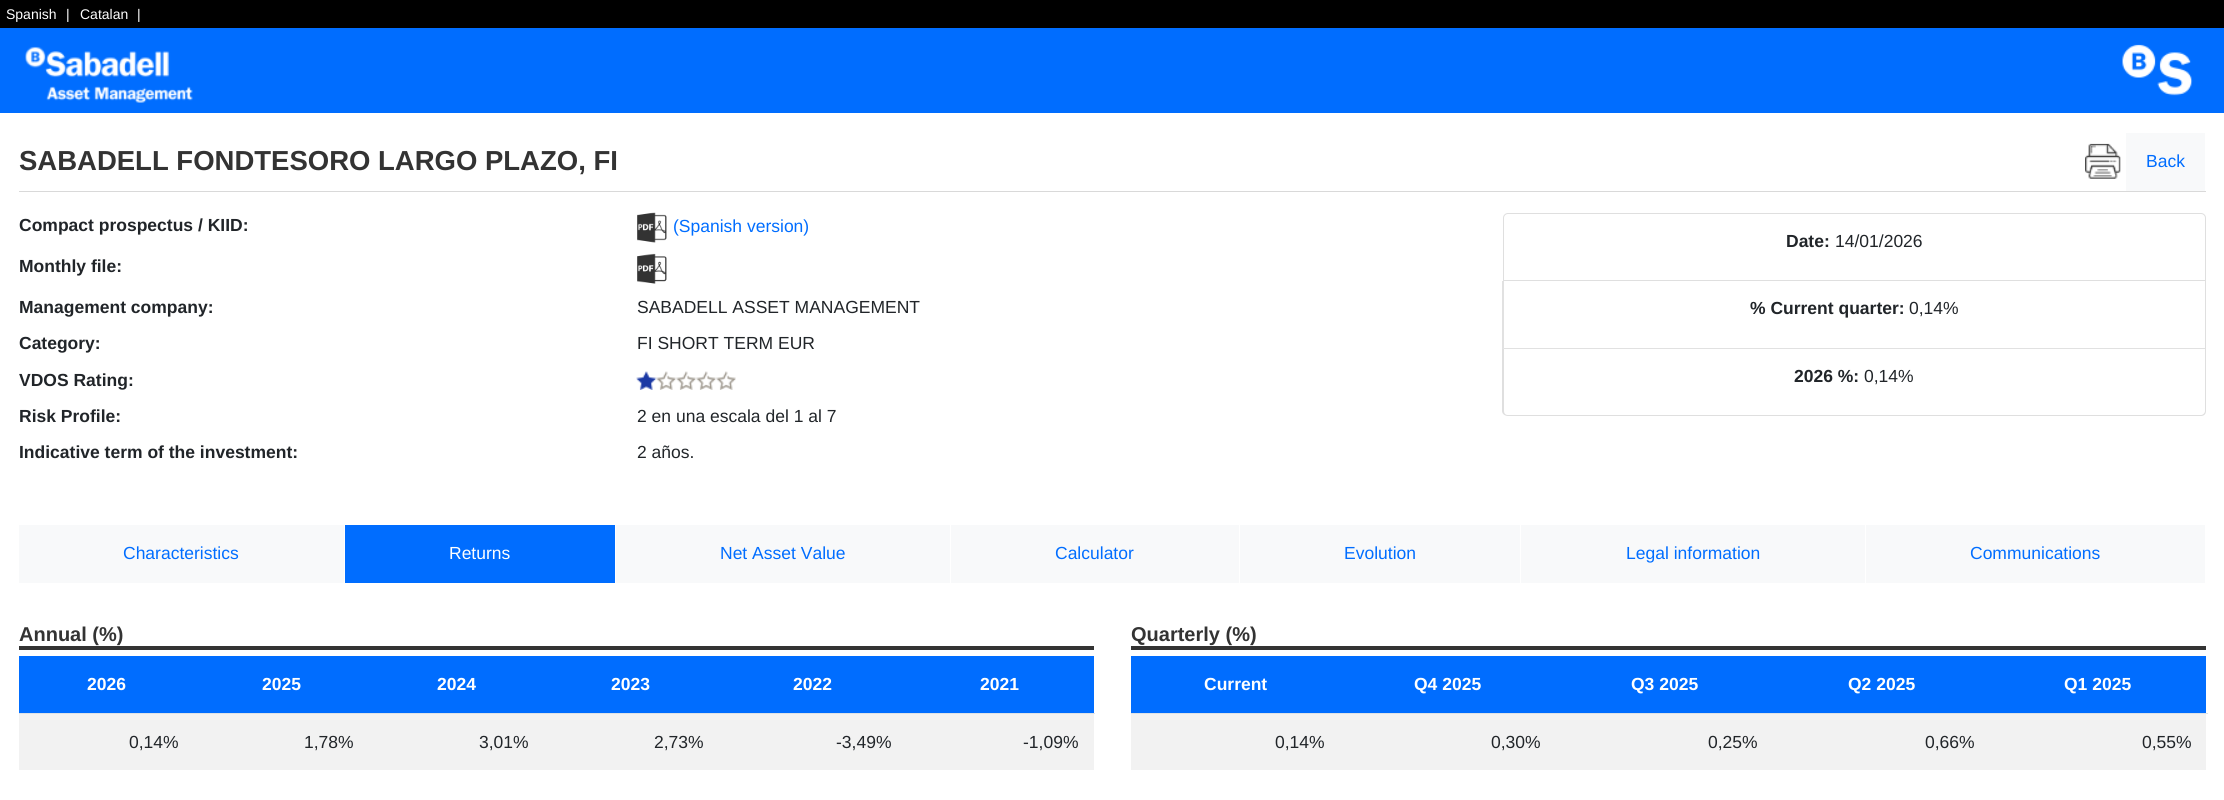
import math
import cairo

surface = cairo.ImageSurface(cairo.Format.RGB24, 2224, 800)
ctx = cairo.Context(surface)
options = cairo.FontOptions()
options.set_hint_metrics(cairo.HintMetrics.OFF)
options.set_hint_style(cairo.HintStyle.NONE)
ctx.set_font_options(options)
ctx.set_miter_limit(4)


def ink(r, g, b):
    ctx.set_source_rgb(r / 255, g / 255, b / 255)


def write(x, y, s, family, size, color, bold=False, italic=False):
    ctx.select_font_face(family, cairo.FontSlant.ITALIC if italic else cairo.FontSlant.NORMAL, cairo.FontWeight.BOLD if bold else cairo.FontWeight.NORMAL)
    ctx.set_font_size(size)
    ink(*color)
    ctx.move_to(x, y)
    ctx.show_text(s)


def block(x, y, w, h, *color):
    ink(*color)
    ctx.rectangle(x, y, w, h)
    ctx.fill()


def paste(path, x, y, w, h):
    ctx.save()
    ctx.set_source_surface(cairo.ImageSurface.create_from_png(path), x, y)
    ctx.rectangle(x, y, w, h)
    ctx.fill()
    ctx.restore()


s1 = dict(family="Liberation Sans", size=14, color=(255, 255, 255))
s2 = dict(family="Liberation Sans", size=27.5, color=(51, 51, 51), bold=True)
s3 = dict(family="Liberation Sans", size=17.5, color=(0, 109, 255))
s4 = dict(family="Liberation Sans", size=17.5, color=(33, 37, 41), bold=True)
s5 = dict(family="Liberation Sans", size=17.5, color=(33, 37, 41))
s6 = dict(family="Liberation Sans", size=17.5, color=(255, 255, 255))
s7 = dict(family="Liberation Sans", size=20, color=(51, 51, 51), bold=True)
s8 = dict(family="Liberation Sans", size=17.5, color=(255, 255, 255), bold=True)

ink(255, 255, 255)
ctx.paint()
block(0, 28, 2224, 85, 0, 109, 255)
block(0, 0, 2224, 28, 0, 0, 0)
write(6, 19, "Spanish", **s1)
write(66, 19, "|", **s1)
write(80, 19, "Catalan", **s1)
write(137, 19, "|", **s1)
paste("pic1.png", 25, 46, 168, 57)
paste("pic2.png", 2122, 44, 71, 52)
block(19, 191, 2187, 1, 217, 217, 217)
write(19, 170, "SABADELL FONDTESORO LARGO PLAZO, FI", **s2)
paste("pic3.png", 2085, 143, 36, 36)
block(2126, 133, 79, 58, 248, 249, 250)
write(2146, 167, "Back", **s3)
write(19, 231, "Compact prospectus / KIID:", **s4)
paste("pic4.png", 637, 212, 30, 31)
write(673, 232, "(Spanish version)", **s3)
write(19, 272, "Monthly file:", **s4)
paste("pic5.png", 637, 253, 30, 31)
write(19, 313, "Management company:", **s4)
write(637, 313, "SABADELL ASSET MANAGEMENT", **s5)
write(19, 349, "Category:", **s4)
write(637, 349, "FI SHORT TERM EUR", **s5)
write(19, 386, "VDOS Rating:", **s4)
paste("pic6.png", 636, 371, 100, 19)
write(19, 422, "Risk Profile:", **s4)
write(637, 422, "2 en una escala del 1 al 7", **s5)
write(19, 458, "Indicative term of the investment:", **s4)
write(637, 458, "2 años.", **s5)
ctx.new_path()
ctx.move_to(1508, 213.5)
ctx.line_to(2201, 213.5)
ctx.curve_to(2203.5, 213.5, 2205.5, 215.5, 2205.5, 218)
ctx.line_to(2205.5, 280.5)
ctx.line_to(1503.5, 280.5)
ctx.line_to(1503.5, 218)
ctx.curve_to(1503.5, 215.5, 1505.5, 213.5, 1508, 213.5)
ctx.close_path()
ink(223, 223, 223)
ctx.set_line_width(1)
ctx.stroke()
write(1786, 247, "Date:", **s4)
write(1835, 247, "14/01/2026", **s5)
ink(223, 223, 223)
ctx.new_path()
ctx.move_to(2206, 281)
ctx.line_to(2206, 349)
ctx.line_to(2205, 348)
ctx.line_to(2205, 281)
ctx.close_path()
ctx.fill()
ctx.set_source_rgba(0, 0, 0, 0.12)
ctx.new_path()
ctx.move_to(2206, 349)
ctx.line_to(1502, 349)
ctx.line_to(1504, 348)
ctx.line_to(2205, 348)
ctx.close_path()
ctx.fill()
ctx.new_path()
ctx.move_to(1502, 349)
ctx.line_to(1502, 281)
ctx.line_to(1504, 281)
ctx.line_to(1504, 348)
ctx.close_path()
ctx.fill()
write(1750, 314, "% Current quarter:", **s4)
write(1909, 314, "0,14%", **s5)
ink(223, 223, 223)
ctx.set_fill_rule(cairo.FillRule.EVEN_ODD)
ctx.new_path()
ctx.move_to(1502, 349)
ctx.line_to(2206, 349)
ctx.line_to(2206, 411)
ctx.curve_to(2206, 414, 2204, 416, 2201, 416)
ctx.line_to(1508, 416)
ctx.curve_to(1505, 416, 1502, 414, 1502, 411)
ctx.close_path()
ctx.move_to(1504, 349)
ctx.line_to(2205, 349)
ctx.line_to(2205, 411)
ctx.curve_to(2205, 413, 2203, 415, 2201, 415)
ctx.line_to(1508, 415)
ctx.curve_to(1505, 415, 1504, 413, 1504, 411)
ctx.close_path()
ctx.fill()
write(1794, 382, "2026 %:", **s4)
write(1864, 382, "0,14%", **s5)
block(19, 525, 325, 58, 248, 249, 250)
write(123, 559, "Characteristics", **s3)
block(345, 525, 270, 58, 0, 109, 255)
write(449, 559, "Returns", **s6)
block(616, 525, 334, 58, 248, 249, 250)
write(720, 559, "Net Asset Value", **s3)
block(951, 525, 288, 58, 248, 249, 250)
write(1055, 559, "Calculator", **s3)
block(1240, 525, 280, 58, 248, 249, 250)
write(1344, 559, "Evolution", **s3)
block(1521, 525, 344, 58, 248, 249, 250)
write(1626, 559, "Legal information", **s3)
block(1866, 525, 339, 58, 248, 249, 250)
write(1970, 559, "Communications", **s3)
block(19, 646, 1075, 4, 51, 51, 51)
write(19, 641, "Annual (%)", **s7)
block(19, 656, 1075, 57, 0, 109, 255)
write(87, 690, "2026", **s8)
write(262, 690, "2025", **s8)
write(437, 690, "2024", **s8)
write(611, 690, "2023", **s8)
write(793, 690, "2022", **s8)
write(980, 690, "2021", **s8)
block(19, 714, 1075, 56, 242, 242, 242)
write(129, 748, "0,14%", **s5)
write(304, 748, "1,78%", **s5)
write(479, 748, "3,01%", **s5)
write(654, 748, "2,73%", **s5)
write(836, 748, "-3,49%", **s5)
block(19, 713, 1076, 1, 222, 226, 230)
write(1023, 748, "-1,09%", **s5)
block(1131, 646, 1075, 4, 51, 51, 51)
write(1131, 641, "Quarterly (%)", **s7)
block(1131, 656, 1075, 57, 0, 109, 255)
write(1204, 690, "Current", **s8)
write(1414, 690, "Q4 2025", **s8)
write(1631, 690, "Q3 2025", **s8)
write(1848, 690, "Q2 2025", **s8)
write(2064, 690, "Q1 2025", **s8)
block(1131, 714, 1075, 56, 242, 242, 242)
write(1275, 748, "0,14%", **s5)
write(1491, 748, "0,30%", **s5)
write(1708, 748, "0,25%", **s5)
write(1925, 748, "0,66%", **s5)
block(1131, 713, 1077, 1, 222, 226, 230)
write(2142, 748, "0,55%", **s5)
surface.write_to_png("screenshot.png")
